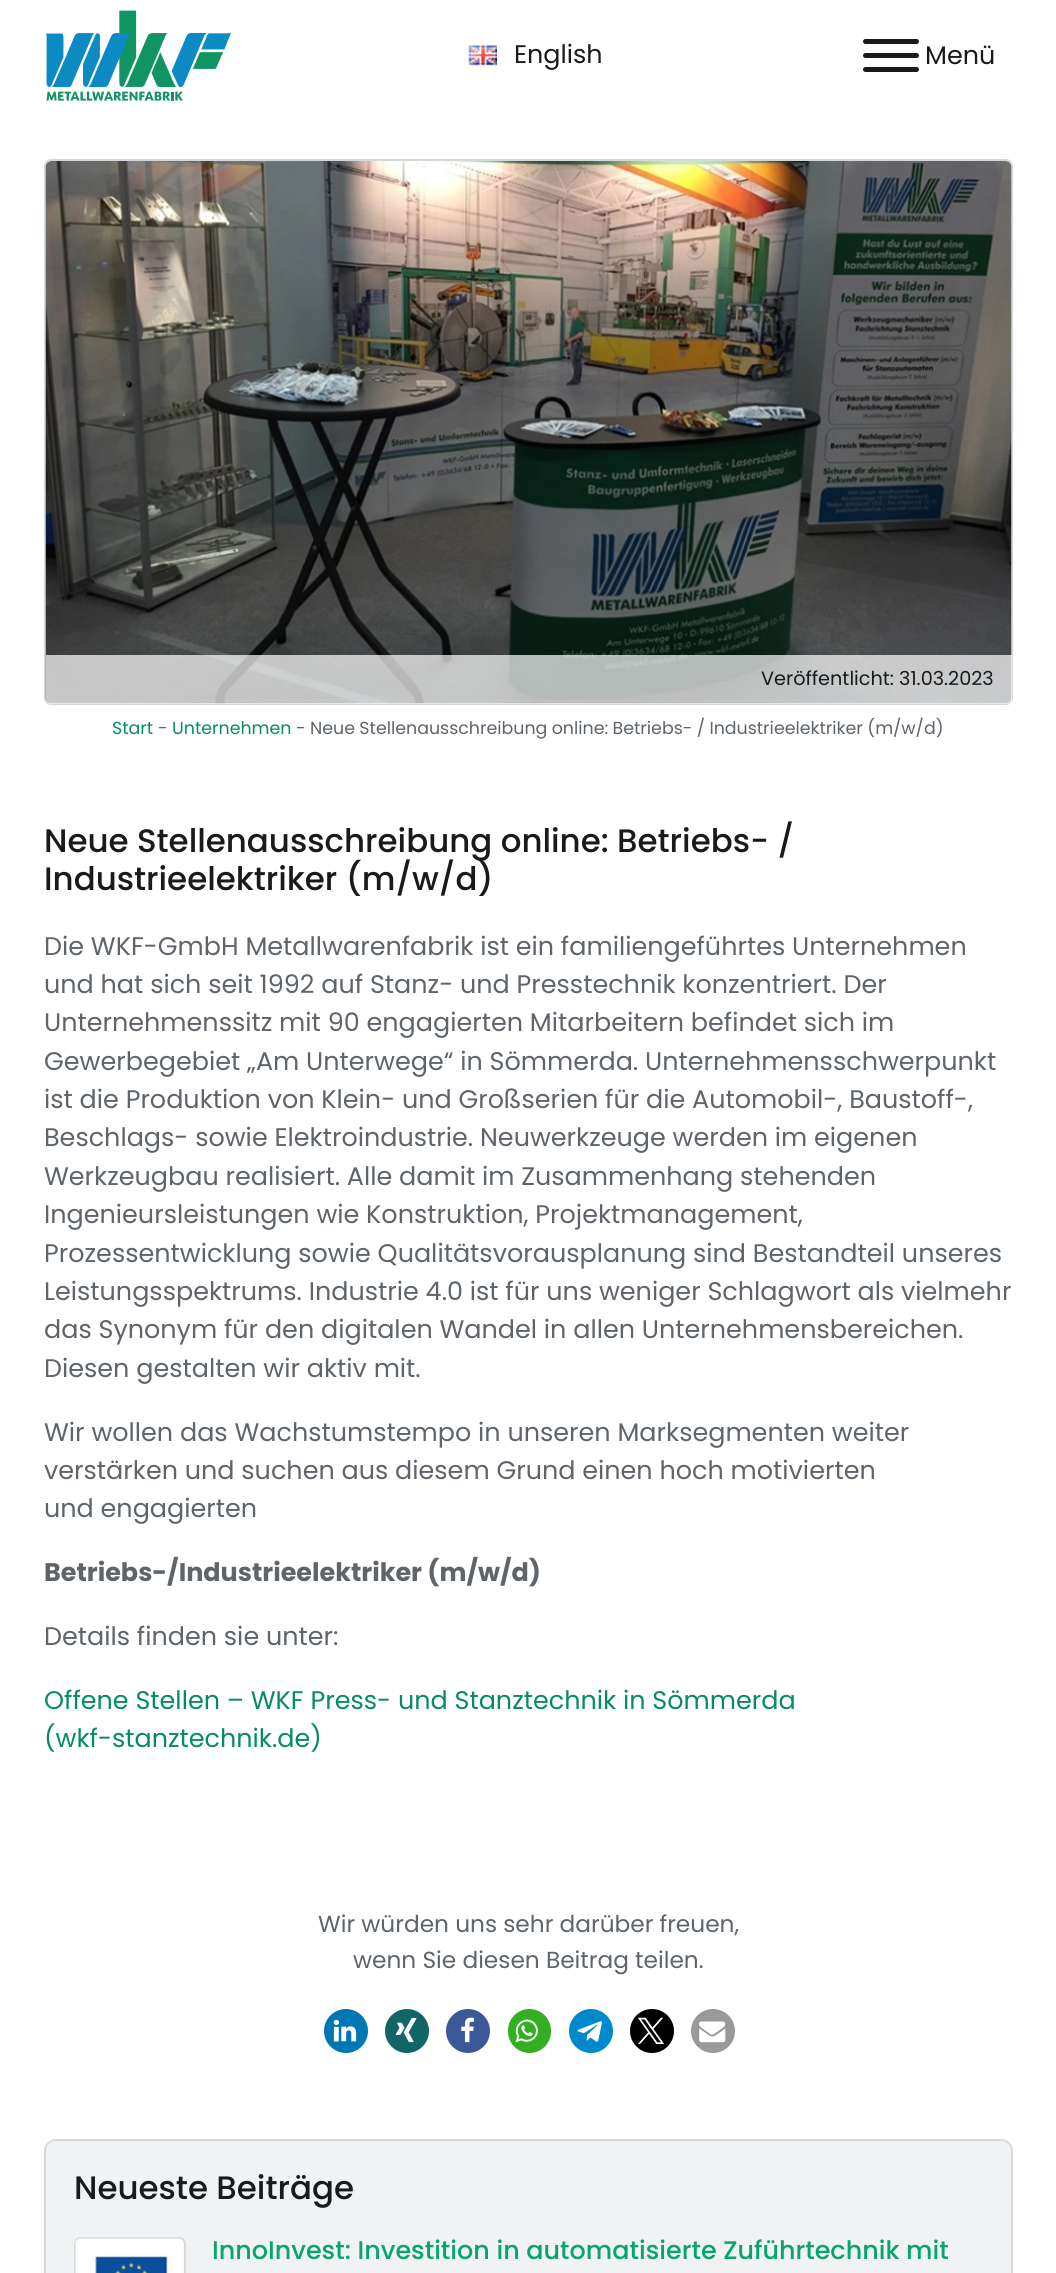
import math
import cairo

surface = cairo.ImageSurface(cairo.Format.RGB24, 1056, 2273)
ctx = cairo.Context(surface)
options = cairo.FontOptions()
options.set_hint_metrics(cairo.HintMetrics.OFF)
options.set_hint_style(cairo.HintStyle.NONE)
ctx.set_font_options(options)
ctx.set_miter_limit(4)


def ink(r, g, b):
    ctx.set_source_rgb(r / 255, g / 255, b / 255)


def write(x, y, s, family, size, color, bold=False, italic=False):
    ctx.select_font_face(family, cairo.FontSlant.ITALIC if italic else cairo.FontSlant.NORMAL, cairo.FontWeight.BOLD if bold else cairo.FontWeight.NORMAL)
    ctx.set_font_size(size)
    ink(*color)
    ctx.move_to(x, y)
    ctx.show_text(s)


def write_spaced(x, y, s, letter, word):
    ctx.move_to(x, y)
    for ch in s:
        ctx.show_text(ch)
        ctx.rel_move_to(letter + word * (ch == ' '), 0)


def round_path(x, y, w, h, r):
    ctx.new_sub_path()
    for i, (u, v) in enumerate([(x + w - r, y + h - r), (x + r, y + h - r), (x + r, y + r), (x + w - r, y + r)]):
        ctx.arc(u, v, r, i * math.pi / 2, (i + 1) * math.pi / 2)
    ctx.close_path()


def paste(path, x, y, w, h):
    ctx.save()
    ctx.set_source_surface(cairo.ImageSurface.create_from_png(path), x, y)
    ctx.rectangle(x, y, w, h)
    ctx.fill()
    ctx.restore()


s1 = dict(family="Poppins", size=25.45, color=(24, 26, 27))
s2 = dict(family="Poppins", size=19.25, color=(24, 26, 27))
s3 = dict(family="Poppins", size=17.4, color=(5, 141, 96))
s4 = dict(family="Poppins", size=17.4, color=(94, 100, 106))
s5 = dict(family="Poppins Medium", size=32.45, color=(24, 26, 27))
s6 = dict(family="Poppins", size=25.45, color=(94, 100, 106))
s7 = dict(family="Poppins", size=25.45, color=(94, 100, 106), bold=True)
s8 = dict(family="Poppins", size=25.45, color=(5, 141, 96))
s9 = dict(family="Poppins", size=23.25, color=(94, 100, 106))
s10 = dict(family="Poppins Medium", size=25.45, color=(6, 164, 111))

ink(255, 255, 255)
ctx.paint()
paste("pic1.png", 46, 10, 186, 91)
paste("pic2.png", 468, 45, 29, 21)
write(514, 63, "English", **s1)
round_path(863, 53, 56, 5, 2.5)
ctx.fill()
round_path(863, 39, 56, 5, 2.5)
ctx.fill()
round_path(863, 67, 56, 5, 2.5)
ctx.fill()
write(925, 64, "Menü", **s1)
ctx.save()
round_path(44, 159, 969, 546, 7)
ctx.clip()
gradient = cairo.LinearGradient(529, 161, 529, 704)
gradient.add_color_stop_rgba(0, 0.902, 0.969, 1, 1)
gradient.add_color_stop_rgba(1, 1, 1, 1, 1)
ctx.set_source(gradient)
ctx.rectangle(44, 161, 969, 543)
ctx.fill()
ctx.restore()
round_path(45, 160, 967, 544, 6)
ink(214, 217, 219)
ctx.stroke()
paste("pic3.png", 45, 161, 967, 543)
ctx.set_source_rgba(1, 1, 1, 0.7)
ctx.new_path()
ctx.move_to(46, 655)
ctx.line_to(1012, 655)
ctx.line_to(1012, 699)
ctx.curve_to(1012, 702, 1010, 704, 1007, 704)
ctx.line_to(51, 704)
ctx.curve_to(48, 704, 46, 702, 46, 699)
ctx.close_path()
ctx.fill()
write(761, 685, "Veröffentlicht: 31.03.2023", **s2)
write(112, 734, "Start", **s3)
write(158, 734, "-", **s4)
write(172, 734, "Unternehmen", **s3)
write(296, 734, "-", **s4)
write_spaced(310, 734, "Neue Stellenausschreibung online: Betriebs- / Industrieelektriker (m/w/d)", 0, -0.25)
write(44, 852, "Neue Stellenausschreibung online: Betriebs- /", **s5)
write(44, 890, "Industrieelektriker (m/w/d)", **s5)
write(44, 955, "Die WKF-GmbH Metallwarenfabrik ist ein familiengeführtes Unternehmen", **s6)
write(44, 993, "und hat sich seit 1992 auf Stanz- und Presstechnik konzentriert. Der", **s6)
write(44, 1031, "Unternehmenssitz mit 90 engagierten Mitarbeitern befindet sich im", **s6)
write(44, 1070, "Gewerbegebiet „Am Unterwege“ in Sömmerda. Unternehmensschwerpunkt", **s6)
write(44, 1108, "ist die Produktion von Klein- und Großserien für die Automobil-, Baustoff-,", **s6)
write(44, 1146, "Beschlags- sowie Elektroindustrie. Neuwerkzeuge werden im eigenen", **s6)
write(44, 1185, "Werkzeugbau realisiert. Alle damit im Zusammenhang stehenden", **s6)
write(44, 1223, "Ingenieursleistungen wie Konstruktion, Projektmanagement,", **s6)
write(44, 1262, "Prozessentwicklung sowie Qualitätsvorausplanung sind Bestandteil unseres", **s6)
write(44, 1300, "Leistungsspektrums. Industrie 4.0 ist für uns weniger Schlagwort als vielmehr", **s6)
write(44, 1338, "das Synonym für den digitalen Wandel in allen Unternehmensbereichen.", **s6)
write(44, 1377, "Diesen gestalten wir aktiv mit.", **s6)
write(44, 1441, "Wir wollen das Wachstumstempo in unseren Marksegmenten weiter", **s6)
write(44, 1479, "verstärken und suchen aus diesem Grund einen hoch motivierten", **s6)
write(44, 1517, "und engagierten", **s6)
write(44, 1581, "Betriebs-/Industrieelektriker (m/w/d)", **s7)
write(44, 1645, "Details finden sie unter:", **s6)
write(44, 1709, "Offene Stellen – WKF Press- und Stanztechnik in Sömmerda", **s8)
write(44, 1747, "(wkf-stanztechnik.de)", **s8)
write(318, 1932, "Wir würden uns sehr darüber freuen,", **s9)
write(353, 1968, "wenn Sie diesen Beitrag teilen.", **s9)
ink(0, 119, 181)
ctx.new_path()
ctx.arc(346, 2031, 22, 0, 2 * math.pi)
ctx.fill()
paste("pic4.png", 333, 2019, 24, 23)
ink(18, 101, 103)
ctx.arc(407, 2031, 22, 0, 2 * math.pi)
ctx.fill()
paste("pic5.png", 395, 2017, 22, 26)
ink(59, 89, 152)
ctx.arc(468, 2031, 22, 0, 2 * math.pi)
ctx.fill()
paste("pic6.png", 461, 2017, 13, 26)
ink(52, 175, 35)
round_path(508, 2009, 43, 44, 21.5)
ctx.fill()
paste("pic7.png", 515, 2019, 23, 24)
ink(0, 136, 204)
ctx.arc(591, 2031, 22, 0, 2 * math.pi)
ctx.fill()
paste("pic8.png", 577, 2021, 25, 21)
ink(0, 0, 0)
ctx.arc(652, 2031, 22, 0, 2 * math.pi)
ctx.fill()
paste("pic9.png", 638, 2017, 26, 27)
ink(153, 153, 153)
ctx.arc(713, 2031, 22, 0, 2 * math.pi)
ctx.fill()
paste("pic10.png", 699, 2021, 27, 22)
ink(241, 242, 243)
round_path(45, 2140, 967, 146, 11)
ctx.fill_preserve()
ink(214, 217, 219)
ctx.stroke()
write(74, 2199, "Neueste Beiträge", **s5)
round_path(75, 2238, 110, 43, 6)
ink(214, 217, 219)
ctx.stroke()
paste("pic11.png", 75, 2238, 109, 35)
write(212, 2259, "InnoInvest: Investition in automatisierte Zuführtechnik mit", **s10)
surface.write_to_png("screenshot.png")
